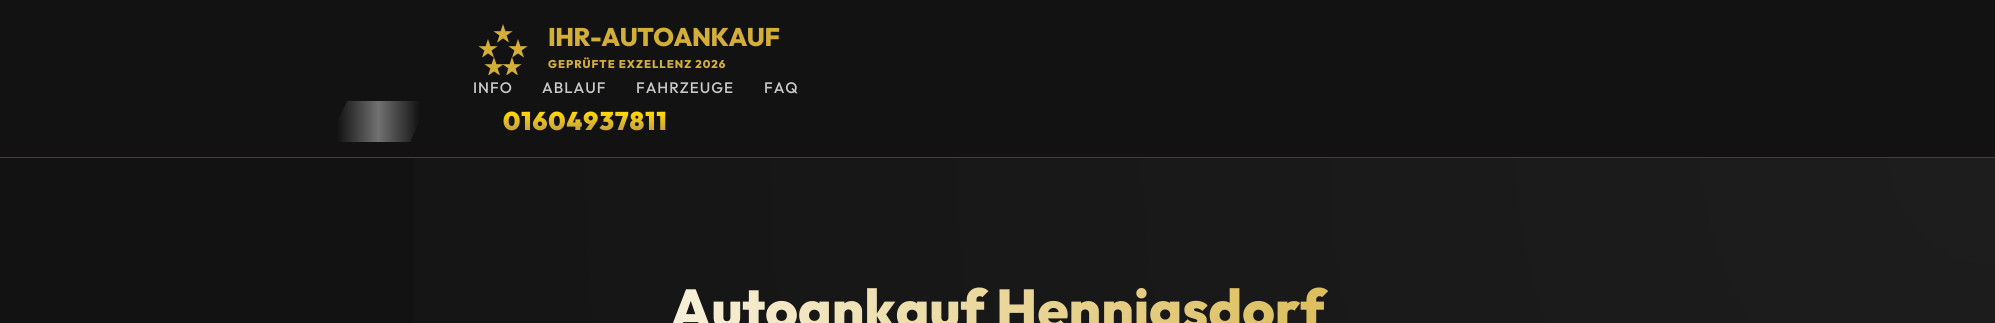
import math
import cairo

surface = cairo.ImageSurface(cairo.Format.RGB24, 1995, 323)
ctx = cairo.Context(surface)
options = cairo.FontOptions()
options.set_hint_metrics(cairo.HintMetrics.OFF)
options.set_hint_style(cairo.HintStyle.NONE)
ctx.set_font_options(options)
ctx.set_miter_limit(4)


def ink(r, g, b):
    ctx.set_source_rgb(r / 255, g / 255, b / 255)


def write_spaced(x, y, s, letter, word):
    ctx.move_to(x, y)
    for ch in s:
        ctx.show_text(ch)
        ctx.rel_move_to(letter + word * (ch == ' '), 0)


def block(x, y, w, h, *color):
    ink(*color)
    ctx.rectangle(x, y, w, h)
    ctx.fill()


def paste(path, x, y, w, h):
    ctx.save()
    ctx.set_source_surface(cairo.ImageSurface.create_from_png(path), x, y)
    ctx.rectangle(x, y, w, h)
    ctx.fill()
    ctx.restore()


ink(18, 18, 18)
ctx.paint()
block(0, 157, 1995, 1, 76, 65, 29)
paste("pic1.png", 478, 24, 50, 51)
ctx.select_font_face("Outfit ExtraBold")
ctx.set_font_size(25.5)
ink(212, 175, 55)
write_spaced(548, 46, "IHR-AUTOANKAUF", -0.5, 0)
ctx.set_font_size(11.25)
write_spaced(548, 68, "GEPRÜFTE EXZELLENZ 2026", 1, 0)
ctx.select_font_face("Outfit Medium")
ctx.set_font_size(15.25)
ink(200, 200, 200)
write_spaced(473, 93, "INFO", 1, 0)
write_spaced(542, 93, "ABLAUF", 1, 0)
write_spaced(636, 93, "FAHRZEUGE", 1, 0)
write_spaced(764, 93, "FAQ", 1, 0)
gradient = cairo.LinearGradient(337, 121, 420, 121)
gradient.add_color_stop_rgba(0, 0.071, 0.071, 0.071, 1)
gradient.add_color_stop_rgba(0.5, 0.443, 0.443, 0.443, 1)
gradient.add_color_stop_rgba(1, 0.071, 0.071, 0.071, 1)
ctx.set_source(gradient)
ctx.new_path()
ctx.move_to(347, 101)
ctx.line_to(429, 101)
ctx.line_to(410, 142)
ctx.line_to(328, 142)
ctx.close_path()
ctx.fill()
ctx.select_font_face("Outfit Black")
ctx.set_font_size(25.5)
gradient = cairo.LinearGradient(585, 101, 585, 142)
gradient.add_color_stop_rgba(0, 1, 0.961, 0.765, 1)
gradient.add_color_stop_rgba(0.3, 1, 0.843, 0, 1)
gradient.add_color_stop_rgba(0.6, 0.831, 0.686, 0.216, 1)
gradient.add_color_stop_rgba(1, 0.722, 0.525, 0.043, 1)
ctx.set_source(gradient)
write_spaced(503, 130, "01604937811", 1, 0)
gradient = cairo.RadialGradient(1995, 158, 0, 1995, 158, 2044)
gradient.add_color_stop_rgba(0, 0.114, 0.114, 0.114, 1)
gradient.add_color_stop_rgba(1, 0.071, 0.071, 0.071, 1)
ctx.set_source(gradient)
ctx.rectangle(414, 158, 1581, 165)
ctx.fill()
ctx.select_font_face("Outfit ExtraBold")
ctx.set_font_size(56)
gradient = cairo.LinearGradient(473, 308, 1523, 308)
gradient.add_color_stop_rgba(0, 1, 1, 1, 1)
gradient.add_color_stop_rgba(1, 0.831, 0.686, 0.216, 1)
ctx.set_source(gradient)
ctx.move_to(670, 329)
ctx.show_text("Autoankauf Hennigsdorf")
surface.write_to_png("screenshot.png")
